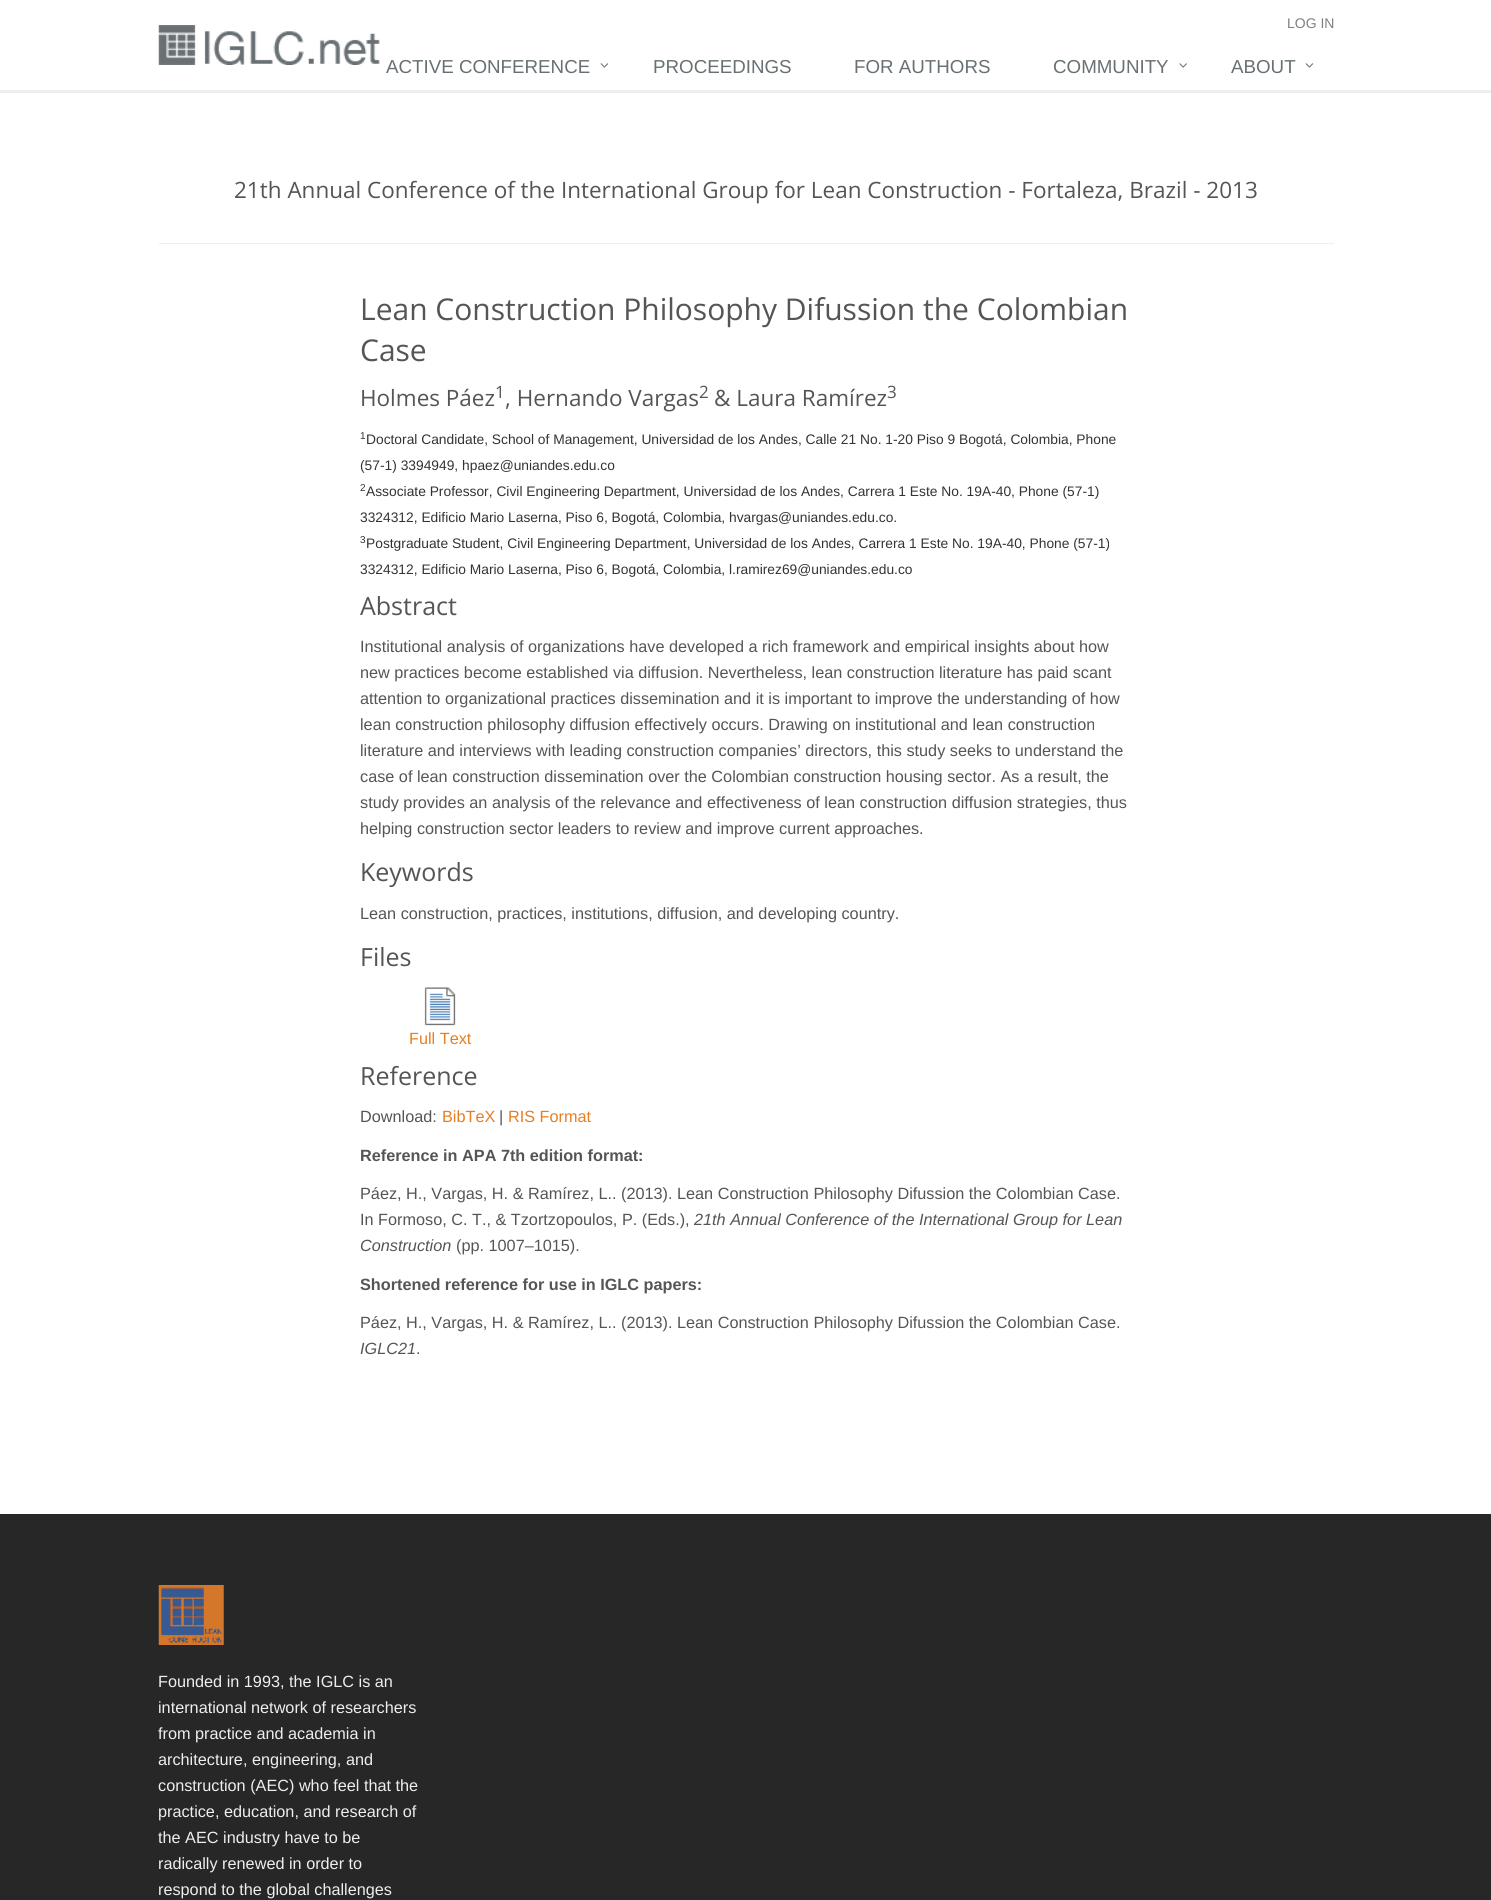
import math
import cairo

surface = cairo.ImageSurface(cairo.Format.RGB24, 1491, 1900)
ctx = cairo.Context(surface)
options = cairo.FontOptions()
options.set_hint_metrics(cairo.HintMetrics.OFF)
options.set_hint_style(cairo.HintStyle.NONE)
ctx.set_font_options(options)
ctx.set_miter_limit(4)


def ink(r, g, b):
    ctx.set_source_rgb(r / 255, g / 255, b / 255)


def write(x, y, s, family, size, color, bold=False, italic=False):
    ctx.select_font_face(family, cairo.FontSlant.ITALIC if italic else cairo.FontSlant.NORMAL, cairo.FontWeight.BOLD if bold else cairo.FontWeight.NORMAL)
    ctx.set_font_size(size)
    ink(*color)
    ctx.move_to(x, y)
    ctx.show_text(s)


def block(x, y, w, h, *color):
    ink(*color)
    ctx.rectangle(x, y, w, h)
    ctx.fill()


def paste(path, x, y, w, h):
    ctx.save()
    ctx.set_source_surface(cairo.ImageSurface.create_from_png(path), x, y)
    ctx.rectangle(x, y, w, h)
    ctx.fill()
    ctx.restore()


s1 = dict(family="Liberation Sans", size=14, color=(124, 128, 130))
s2 = dict(family="Liberation Sans", size=18.75, color=(104, 112, 116))
s3 = dict(family="Open Sans", size=22.5, color=(85, 85, 85))
s4 = dict(family="Open Sans", size=30, color=(85, 85, 85))
s5 = dict(family="Open Sans", size=17, color=(85, 85, 85))
s6 = dict(family="Liberation Sans", size=10, color=(51, 51, 51))
s7 = dict(family="Liberation Sans", size=13.8, color=(51, 51, 51))
s8 = dict(family="Open Sans", size=25, color=(85, 85, 85))
s9 = dict(family="Liberation Sans", size=16.25, color=(85, 85, 85))
s10 = dict(family="Liberation Sans", size=16.25, color=(230, 126, 34))
s11 = dict(family="Liberation Sans", size=16.25, color=(85, 85, 85), bold=True)
s12 = dict(family="Liberation Sans", size=16.25, color=(85, 85, 85), italic=True)
s13 = dict(family="Liberation Sans", size=16.25, color=(238, 238, 238))

ink(255, 255, 255)
ctx.paint()
block(0, 90, 1491, 3, 238, 238, 238)
write(1287, 28, "LOG IN", **s1)
paste("pic1.png", 158, 25, 222, 40)
write(386, 73, "ACTIVE CONFERENCE", **s2)
paste("pic2.png", 600, 63, 9, 5)
write(653, 73, "PROCEEDINGS", **s2)
write(854, 73, "FOR AUTHORS", **s2)
write(1053, 73, "COMMUNITY", **s2)
paste("pic3.png", 1179, 63, 8, 5)
write(1231, 73, "ABOUT", **s2)
paste("pic2.png", 1305, 63, 9, 5)
write(234, 198, "21th Annual Conference of the International Group for Lean Construction - Fortaleza, Brazil - 2013", **s3)
block(159, 243, 1175, 1, 238, 238, 238)
write(360, 320, "Lean Construction Philosophy Difussion the Colombian", **s4)
write(360, 361, "Case", **s4)
write(360, 406, "Holmes Páez", **s3)
write(495, 398, "1", **s5)
write(505, 406, ", Hernando Vargas", **s3)
write(699, 398, "2", **s5)
write(714, 406, "& Laura Ramírez", **s3)
write(887, 398, "3", **s5)
write(360, 439, "1", **s6)
write(366, 444, "Doctoral Candidate, School of Management, Universidad de los Andes, Calle 21 No. 1-20 Piso 9 Bogotá, Colombia, Phone", **s7)
write(360, 470, "(57-1) 3394949, hpaez@uniandes.edu.co", **s7)
write(360, 491, "2", **s6)
write(366, 496, "Associate Professor, Civil Engineering Department, Universidad de los Andes, Carrera 1 Este No. 19A-40, Phone (57-1)", **s7)
write(360, 522, "3324312, Edificio Mario Laserna, Piso 6, Bogotá, Colombia, hvargas@uniandes.edu.co.", **s7)
write(360, 543, "3", **s6)
write(366, 548, "Postgraduate Student, Civil Engineering Department, Universidad de los Andes, Carrera 1 Este No. 19A-40, Phone (57-1)", **s7)
write(360, 574, "3324312, Edificio Mario Laserna, Piso 6, Bogotá, Colombia, l.ramirez69@uniandes.edu.co", **s7)
write(360, 615, "Abstract", **s8)
write(360, 652, "Institutional analysis of organizations have developed a rich framework and empirical insights about how", **s9)
write(360, 678, "new practices become established via diffusion. Nevertheless, lean construction literature has paid scant", **s9)
write(360, 704, "attention to organizational practices dissemination and it is important to improve the understanding of how", **s9)
write(360, 730, "lean construction philosophy diffusion effectively occurs. Drawing on institutional and lean construction", **s9)
write(360, 756, "literature and interviews with leading construction companies’ directors, this study seeks to understand the", **s9)
write(360, 782, "case of lean construction dissemination over the Colombian construction housing sector. As a result, the", **s9)
write(360, 808, "study provides an analysis of the relevance and effectiveness of lean construction diffusion strategies, thus", **s9)
write(360, 834, "helping construction sector leaders to review and improve current approaches.", **s9)
write(360, 881, "Keywords", **s8)
write(360, 919, "Lean construction, practices, institutions, diffusion, and developing country.", **s9)
write(360, 966, "Files", **s8)
paste("pic4.png", 424, 987, 32, 39)
write(409, 1044, "Full Text", **s10)
write(360, 1085, "Reference", **s8)
write(360, 1122, "Download:", **s9)
write(442, 1122, "BibTeX", **s10)
write(499, 1122, "|", **s9)
write(508, 1122, "RIS Format", **s10)
write(360, 1161, "Reference in APA 7th edition format:", **s11)
write(360, 1199, "Páez, H., Vargas, H. & Ramírez, L.. (2013). Lean Construction Philosophy Difussion the Colombian Case.", **s9)
write(360, 1225, "In Formoso, C. T., & Tzortzopoulos, P. (Eds.),", **s9)
write(694, 1225, "21th Annual Conference of the International Group for Lean", **s12)
write(360, 1251, "Construction", **s12)
write(456, 1251, "(pp. 1007–1015).", **s9)
write(360, 1290, "Shortened reference for use in IGLC papers:", **s11)
write(360, 1328, "Páez, H., Vargas, H. & Ramírez, L.. (2013). Lean Construction Philosophy Difussion the Colombian Case.", **s9)
write(360, 1354, "IGLC21", **s12)
write(416, 1354, ".", **s9)
block(0, 1514, 1491, 386, 39, 39, 39)
paste("pic5.png", 158, 1585, 66, 60)
write(158, 1687, "Founded in 1993, the IGLC is an", **s13)
write(158, 1713, "international network of researchers", **s13)
write(158, 1739, "from practice and academia in", **s13)
write(158, 1765, "architecture, engineering, and", **s13)
write(158, 1791, "construction (AEC) who feel that the", **s13)
write(158, 1817, "practice, education, and research of", **s13)
write(158, 1843, "the AEC industry have to be", **s13)
write(158, 1869, "radically renewed in order to", **s13)
write(158, 1895, "respond to the global challenges", **s13)
surface.write_to_png("screenshot.png")
